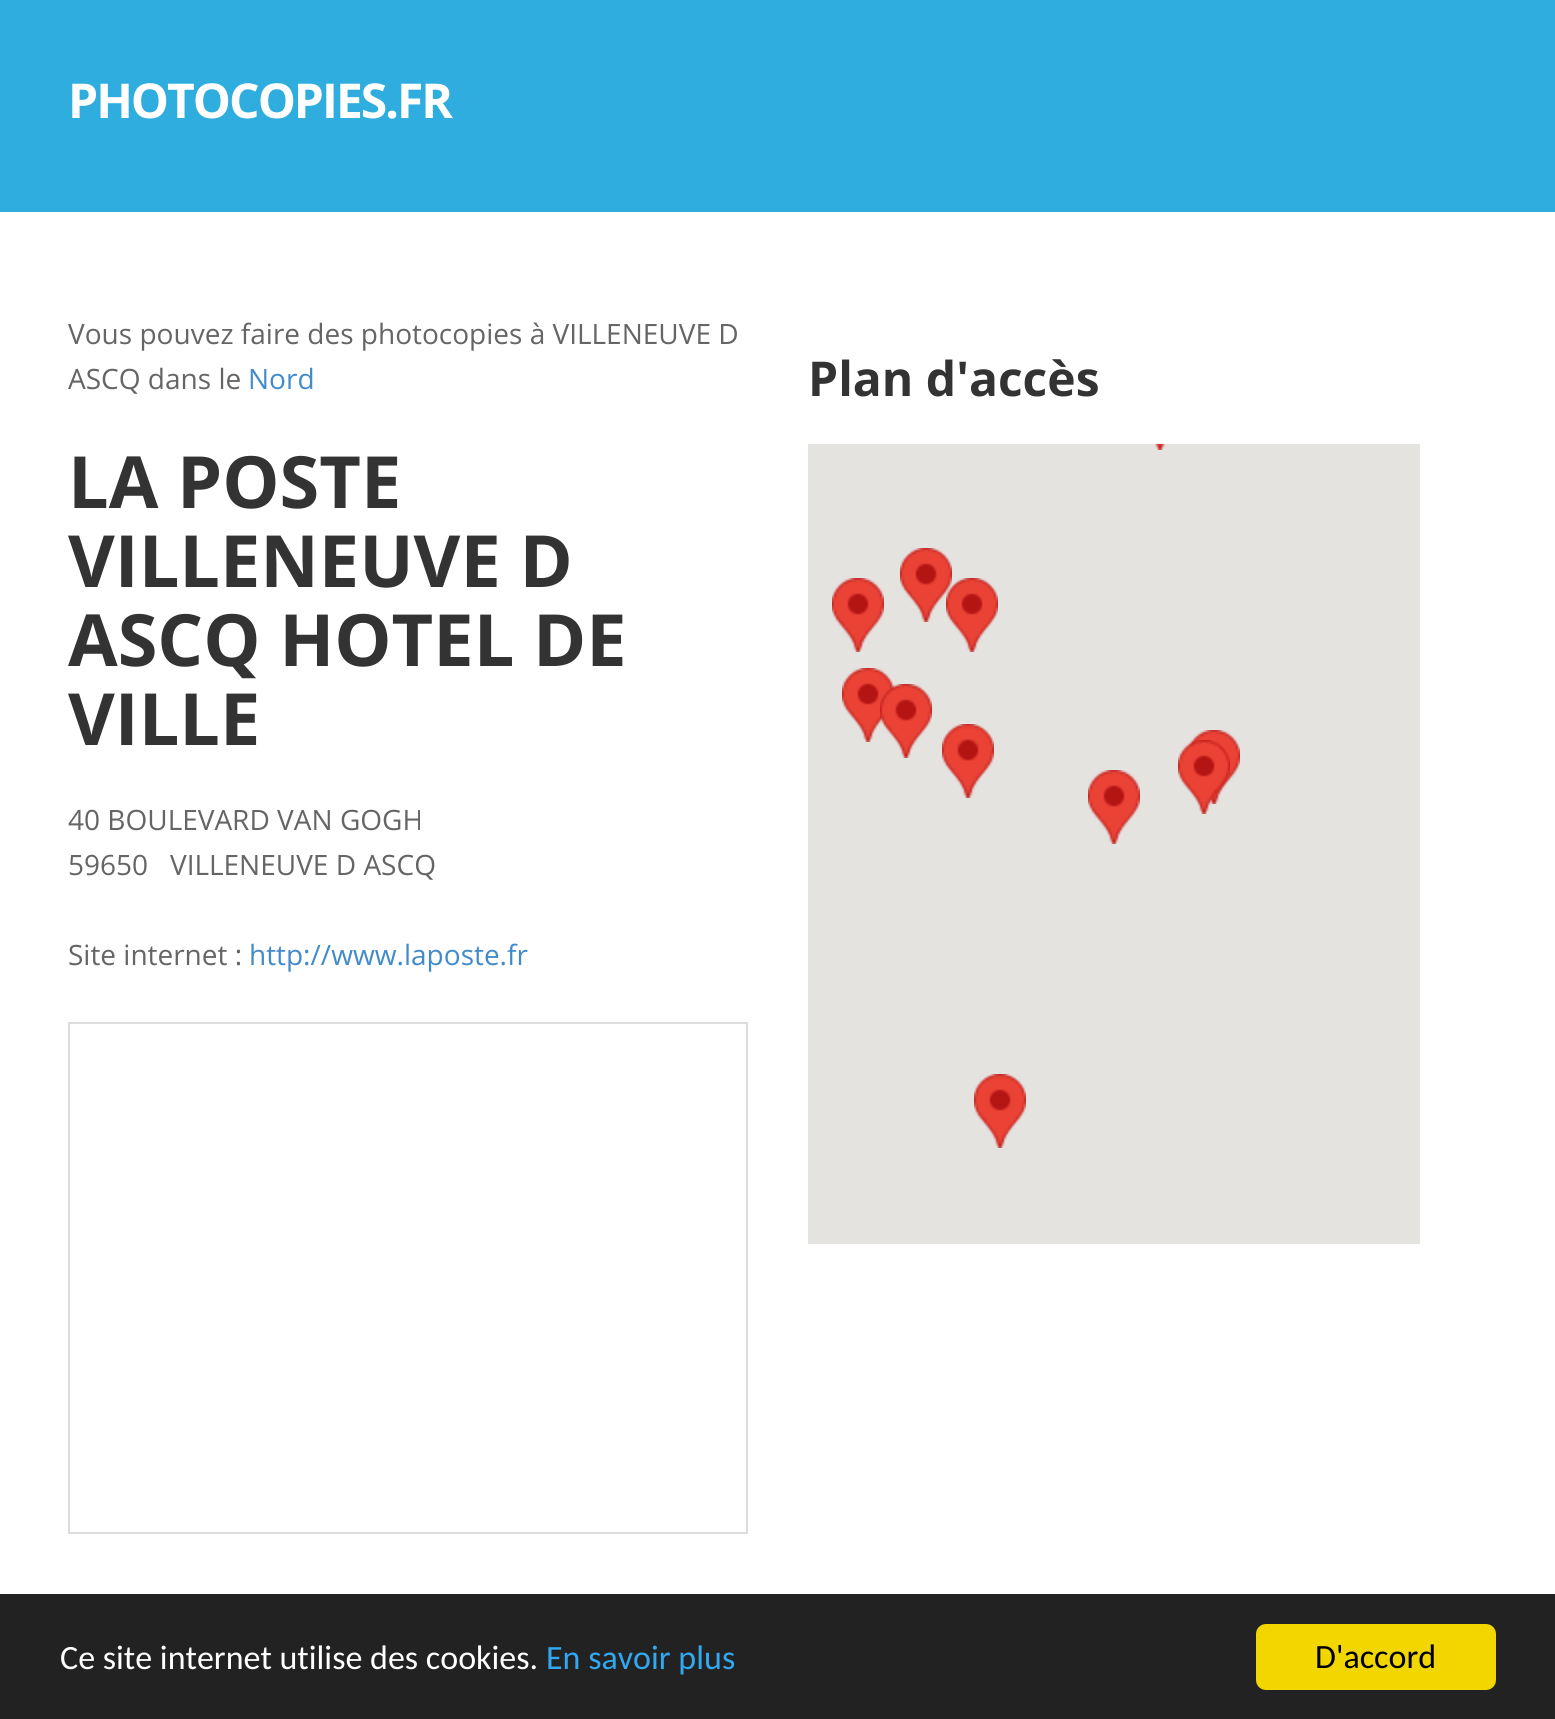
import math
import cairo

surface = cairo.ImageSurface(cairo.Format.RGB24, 1555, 1719)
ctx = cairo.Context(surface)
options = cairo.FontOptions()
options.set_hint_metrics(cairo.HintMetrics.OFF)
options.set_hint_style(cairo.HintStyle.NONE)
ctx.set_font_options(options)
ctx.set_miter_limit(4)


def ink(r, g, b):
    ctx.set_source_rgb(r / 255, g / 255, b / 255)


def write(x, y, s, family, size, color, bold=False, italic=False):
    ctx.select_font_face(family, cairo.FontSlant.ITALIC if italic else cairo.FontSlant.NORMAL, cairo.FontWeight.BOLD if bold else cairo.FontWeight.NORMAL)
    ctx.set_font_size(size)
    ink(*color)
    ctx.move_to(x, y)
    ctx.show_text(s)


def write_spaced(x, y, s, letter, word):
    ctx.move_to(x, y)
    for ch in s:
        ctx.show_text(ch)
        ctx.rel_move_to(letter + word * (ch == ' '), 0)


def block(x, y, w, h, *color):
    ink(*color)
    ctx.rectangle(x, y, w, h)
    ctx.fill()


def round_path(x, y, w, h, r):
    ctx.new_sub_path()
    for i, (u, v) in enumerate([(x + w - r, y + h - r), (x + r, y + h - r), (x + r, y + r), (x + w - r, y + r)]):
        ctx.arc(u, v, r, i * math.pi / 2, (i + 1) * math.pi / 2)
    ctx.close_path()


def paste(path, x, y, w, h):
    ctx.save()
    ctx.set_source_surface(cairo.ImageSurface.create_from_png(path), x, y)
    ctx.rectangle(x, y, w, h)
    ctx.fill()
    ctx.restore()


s1 = dict(family="Open Sans", size=28, color=(101, 101, 101))
s2 = dict(family="Open Sans", size=28, color=(66, 139, 202))
s3 = dict(family="Open Sans", size=72, color=(51, 51, 51), bold=True)
s4 = dict(family="Open Sans", size=48, color=(51, 51, 51), bold=True)
s5 = dict(family="Carlito", size=34, color=(255, 255, 255))
s6 = dict(family="Carlito", size=34, color=(49, 168, 240))
s7 = dict(family="Carlito", size=34, color=(0, 0, 0))

ink(255, 255, 255)
ctx.paint()
block(0, 0, 1555, 212, 47, 173, 222)
ctx.select_font_face("Open Sans", cairo.FontSlant.NORMAL, cairo.FontWeight.BOLD)
ctx.set_font_size(48)
ink(255, 255, 255)
write_spaced(68, 118, "PHOTOCOPIES.FR", -2, 0)
write(68, 344, "Vous pouvez faire des photocopies à VILLENEUVE D", **s1)
write(68, 389, "ASCQ dans le", **s1)
write(248, 389, "Nord", **s2)
write(68, 508, "LA POSTE", **s3)
write(68, 587, "VILLENEUVE D", **s3)
write(68, 666, "ASCQ HOTEL DE", **s3)
write(68, 745, "VILLE", **s3)
write(68, 830, "40 BOULEVARD VAN GOGH", **s1)
write(68, 875, "59650", **s1)
write(170, 875, "VILLENEUVE D ASCQ", **s1)
write(68, 965, "Site internet :", **s1)
write(249, 965, "http://www.laposte.fr", **s2)
ctx.rectangle(69, 1023, 678, 510)
ink(221, 221, 221)
ctx.stroke()
write(808, 396, "Plan d'accès", **s4)
block(808, 444, 612, 800, 229, 227, 223)
paste("pic1.png", 1155, 444, 10, 6)
paste("pic2.png", 832, 578, 52, 74)
paste("pic2.png", 900, 548, 52, 74)
paste("pic3.png", 946, 578, 52, 74)
paste("pic2.png", 842, 668, 52, 74)
paste("pic4.png", 880, 684, 52, 74)
paste("pic2.png", 942, 724, 52, 74)
paste("pic2.png", 1188, 730, 52, 74)
paste("pic2.png", 1088, 770, 52, 74)
paste("pic5.png", 1178, 740, 52, 74)
paste("pic2.png", 974, 1074, 52, 74)
block(0, 1594, 1555, 125, 34, 34, 34)
write(60, 1669, "Ce site internet utilise des cookies.", **s5)
write(546, 1669, "En savoir plus", **s6)
ink(241, 214, 0)
round_path(1256, 1624, 240, 66, 10)
ctx.fill()
write(1315, 1668, "D'accord", **s7)
surface.write_to_png("screenshot.png")
